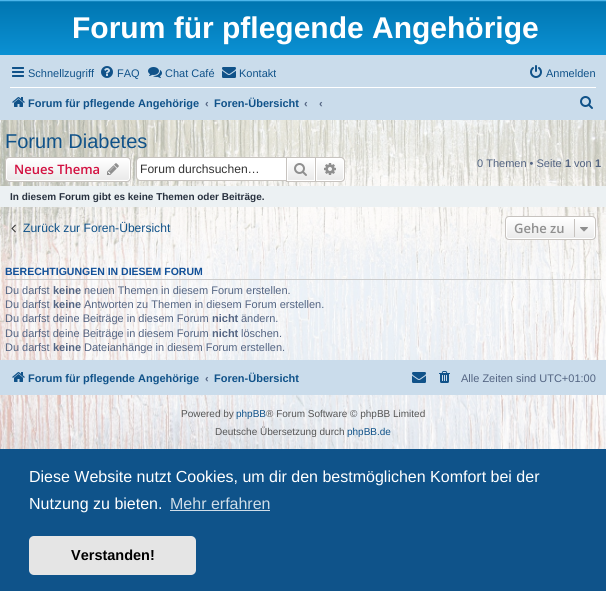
import math
import cairo

surface = cairo.ImageSurface(cairo.Format.RGB24, 606, 591)
ctx = cairo.Context(surface)
options = cairo.FontOptions()
options.set_hint_metrics(cairo.HintMetrics.OFF)
options.set_hint_style(cairo.HintStyle.NONE)
ctx.set_font_options(options)
ctx.set_miter_limit(4)


def ink(r, g, b):
    ctx.set_source_rgb(r / 255, g / 255, b / 255)


def write(x, y, s, family, size, color, bold=False, italic=False):
    ctx.select_font_face(family, cairo.FontSlant.ITALIC if italic else cairo.FontSlant.NORMAL, cairo.FontWeight.BOLD if bold else cairo.FontWeight.NORMAL)
    ctx.set_font_size(size)
    ink(*color)
    ctx.move_to(x, y)
    ctx.show_text(s)


def block(x, y, w, h, *color):
    ink(*color)
    ctx.rectangle(x, y, w, h)
    ctx.fill()


def round_path(x, y, w, h, r):
    ctx.new_sub_path()
    for i, (u, v) in enumerate([(x + w - r, y + h - r), (x + r, y + h - r), (x + r, y + r), (x + w - r, y + r)]):
        ctx.arc(u, v, r, i * math.pi / 2, (i + 1) * math.pi / 2)
    ctx.close_path()


def paste(path, x, y, w, h):
    ctx.save()
    ctx.set_source_surface(cairo.ImageSurface.create_from_png(path), x, y)
    ctx.rectangle(x, y, w, h)
    ctx.fill()
    ctx.restore()


s1 = dict(family="Liberation Sans", size=30, color=(255, 255, 255), bold=True)
s2 = dict(family="Liberation Sans", size=11, color=(16, 82, 137))
s3 = dict(family="Liberation Sans", size=11, color=(16, 82, 137), bold=True)
s4 = dict(family="Liberation Sans", size=11, color=(83, 100, 130), bold=True)
s5 = dict(family="Liberation Sans", size=20, color=(16, 82, 137))
s6 = dict(family="Open Sans SemiBold", size=13, color=(211, 17, 65))
s7 = dict(family="Liberation Sans", size=12.1, color=(51, 51, 51))
s8 = dict(family="Liberation Sans", size=11, color=(83, 100, 130))
s9 = dict(family="Liberation Sans", size=10, color=(40, 49, 63), bold=True)
s10 = dict(family="Liberation Sans", size=12.1, color=(16, 82, 137))
s11 = dict(family="Open Sans SemiBold", size=13, color=(143, 143, 143))
s12 = dict(family="Liberation Sans", size=10.5, color=(17, 80, 152), bold=True)
s13 = dict(family="Liberation Sans", size=10, color=(85, 85, 85))
s14 = dict(family="Liberation Sans", size=10, color=(16, 82, 137))
s15 = dict(family="Liberation Sans", size=16, color=(255, 255, 255))
s16 = dict(family="Liberation Sans", size=16, color=(207, 221, 232))
s17 = dict(family="Liberation Sans", size=14.5, color=(0, 0, 0), bold=True)

ink(255, 255, 255)
ctx.paint()
paste("pic1.png", 605, 120, 1, 329)
paste("pic2.png", 0, 120, 606, 329)
ctx.set_source_rgba(1, 1, 1, 0.5)
ctx.rectangle(0, 120, 606, 329)
ctx.fill()
gradient = cairo.LinearGradient(303, 0, 303, 92)
gradient.add_color_stop_rgba(0, 0.416, 0.808, 1, 1)
gradient.add_color_stop_rgba(0.02, 0, 0.463, 0.694, 1)
gradient.add_color_stop_rgba(1, 0.071, 0.639, 0.922, 1)
ctx.set_source(gradient)
ctx.rectangle(0, 0, 606, 55)
ctx.fill()
write(72, 38, "Forum für pflegende Angehörige", **s1)
block(0, 55, 606, 65, 202, 220, 235)
paste("pic3.png", 12, 67, 12, 10)
write(28, 77, "Schnellzugriff", **s2)
paste("pic4.png", 101, 66, 12, 12)
write(117, 77, "FAQ", **s2)
paste("pic5.png", 148, 67, 14, 11)
write(165, 77, "Chat Café", **s2)
paste("pic6.png", 222, 67, 14, 11)
write(239, 77, "Kontakt", **s2)
paste("pic7.png", 530, 65, 12, 13)
write(546, 77, "Anmelden", **s2)
block(10, 87, 586, 1, 255, 255, 255)
paste("pic8.png", 12, 97, 13, 10)
write(28, 107, "Forum für pflegende Angehörige", **s3)
write(205, 107, "‹", **s4)
write(214, 107, "Foren-Übersicht", **s3)
write(304, 107, "‹", **s4)
write(319, 107, "‹", **s4)
paste("pic9.png", 580, 96, 13, 13)
write(5, 148, "Forum Diabetes", **s5)
ctx.save()
round_path(5, 157, 126, 25, 4)
ctx.clip()
gradient = cairo.LinearGradient(68, 158, 68, 181)
gradient.add_color_stop_rgba(0, 1, 1, 1, 1)
gradient.add_color_stop_rgba(1, 0.914, 0.914, 0.914, 1)
ctx.set_source(gradient)
ctx.rectangle(5, 158, 126, 23)
ctx.fill()
ctx.restore()
round_path(6.5, 158.5, 123, 22, 2.5)
ink(255, 255, 255)
ctx.set_line_width(1)
ctx.stroke()
round_path(5.5, 157.5, 125, 24, 3.5)
ink(199, 195, 191)
ctx.stroke()
write(14, 174, "Neues Thema", **s6)
paste("pic10.png", 107, 163, 12, 12)
ink(255, 255, 255)
ctx.new_path()
ctx.move_to(140, 158)
ctx.line_to(286, 158)
ctx.line_to(286, 180)
ctx.line_to(140, 180)
ctx.curve_to(138.5, 180, 137, 178.5, 137, 177)
ctx.line_to(137, 161)
ctx.curve_to(137, 159.5, 138.5, 158, 140, 158)
ctx.close_path()
ctx.fill()
ink(199, 195, 191)
ctx.set_fill_rule(cairo.FillRule.EVEN_ODD)
ctx.new_path()
ctx.move_to(140, 157)
ctx.line_to(286, 157)
ctx.line_to(286, 181)
ctx.line_to(140, 181)
ctx.curve_to(138, 181, 136, 179, 136, 177)
ctx.line_to(136, 161)
ctx.curve_to(136, 159, 138, 157, 140, 157)
ctx.close_path()
ctx.move_to(140, 158)
ctx.line_to(286, 158)
ctx.line_to(286, 180)
ctx.line_to(140, 180)
ctx.curve_to(138, 180, 137, 179, 137, 177)
ctx.line_to(137, 161)
ctx.curve_to(137, 159, 138, 158, 140, 158)
ctx.close_path()
ctx.fill()
write(140, 173, "Forum durchsuchen…", **s7)
gradient = cairo.LinearGradient(301, 158, 301, 181)
gradient.add_color_stop_rgba(0, 1, 1, 1, 1)
gradient.add_color_stop_rgba(1, 0.914, 0.914, 0.914, 1)
ctx.set_source(gradient)
ctx.rectangle(288, 159, 26, 21)
ctx.fill()
ctx.rectangle(287.5, 158.5, 27, 22)
ink(255, 255, 255)
ctx.stroke()
ctx.rectangle(286.5, 157.5, 29, 24)
ink(199, 195, 191)
ctx.stroke()
paste("pic11.png", 294, 163, 13, 13)
gradient = cairo.LinearGradient(330, 158, 330, 181)
gradient.add_color_stop_rgba(0, 1, 1, 1, 1)
gradient.add_color_stop_rgba(1, 0.914, 0.914, 0.914, 1)
ctx.set_source(gradient)
ctx.new_path()
ctx.move_to(316.5, 158.5)
ctx.line_to(341, 158.5)
ctx.curve_to(342.5, 158.5, 343.5, 159.5, 343.5, 161)
ctx.line_to(343.5, 178)
ctx.curve_to(343.5, 179.5, 342.5, 180.5, 341, 180.5)
ctx.line_to(316.5, 180.5)
ctx.close_path()
ctx.fill_preserve()
ink(255, 255, 255)
ctx.stroke()
ink(199, 195, 191)
ctx.new_path()
ctx.move_to(316, 157)
ctx.line_to(341, 157)
ctx.curve_to(343, 157, 345, 159, 345, 161)
ctx.line_to(345, 178)
ctx.curve_to(345, 180, 343, 182, 341, 182)
ctx.line_to(316, 182)
ctx.close_path()
ctx.move_to(316, 158)
ctx.line_to(341, 158)
ctx.curve_to(342.5, 158, 344, 159.5, 344, 161)
ctx.line_to(344, 178)
ctx.curve_to(344, 179.5, 342.5, 181, 341, 181)
ctx.line_to(316, 181)
ctx.close_path()
ctx.fill()
paste("pic12.png", 324, 163, 12, 12)
write(477, 167, "0 Themen • Seite", **s8)
write(565, 167, "1", **s4)
write(574, 167, "von", **s8)
write(595, 167, "1", **s4)
block(0, 186, 606, 21, 236, 241, 243)
write(10, 200, "In diesem Forum gibt es keine Themen oder Beiträge.", **s9)
paste("pic13.png", 11, 224, 5, 9)
write(23, 232, "Zurück zur Foren-Übersicht", **s10)
ctx.save()
ctx.set_fill_rule(cairo.FillRule.WINDING)
round_path(505, 216, 91, 24, 4)
ctx.clip()
gradient = cairo.LinearGradient(551, 217, 551, 239)
gradient.add_color_stop_rgba(0, 1, 1, 1, 1)
gradient.add_color_stop_rgba(1, 0.914, 0.914, 0.914, 1)
ctx.set_source(gradient)
ctx.rectangle(505, 217, 91, 22)
ctx.fill()
ctx.restore()
round_path(506.5, 217.5, 88, 21, 2.5)
ink(255, 255, 255)
ctx.stroke()
round_path(505.5, 216.5, 90, 23, 3.5)
ink(199, 195, 191)
ctx.stroke()
write(514, 233, "Gehe zu", **s11)
block(574, 219, 1, 18, 199, 195, 191)
paste("pic14.png", 580, 227, 8, 5)
block(5, 279, 596, 1, 204, 204, 204)
write(5, 275, "BERECHTIGUNGEN IN DIESEM FORUM", **s12)
write(5, 294, "Du darfst", **s8)
write(53, 294, "keine", **s4)
write(84, 294, "neuen Themen in diesem Forum erstellen.", **s8)
write(5, 308, "Du darfst", **s8)
write(53, 308, "keine", **s4)
write(84, 308, "Antworten zu Themen in diesem Forum erstellen.", **s8)
write(5, 322, "Du darfst deine Beiträge in diesem Forum", **s8)
write(212, 322, "nicht", **s4)
write(241, 322, "ändern.", **s8)
write(5, 337, "Du darfst deine Beiträge in diesem Forum", **s8)
write(212, 337, "nicht", **s4)
write(241, 337, "löschen.", **s8)
write(5, 351, "Du darfst", **s8)
write(53, 351, "keine", **s4)
write(84, 351, "Dateianhänge in diesem Forum erstellen.", **s8)
block(0, 360, 606, 35, 202, 220, 235)
paste("pic8.png", 12, 372, 13, 10)
write(28, 382, "Forum für pflegende Angehörige", **s3)
write(205, 382, "‹", **s4)
write(214, 382, "Foren-Übersicht", **s3)
paste("pic6.png", 412, 372, 14, 11)
paste("pic15.png", 439, 371, 11, 12)
write(461, 382, "Alle Zeiten sind UTC+01:00", **s8)
write(181, 417, "Powered by", **s13)
write(236, 417, "phpBB", **s14)
write(266, 417, "® Forum Software © phpBB Limited", **s13)
write(215, 435, "Deutsche Übersetzung durch", **s13)
write(347, 435, "phpBB.de", **s14)
block(0, 449, 606, 142, 15, 83, 138)
write(29, 482, "Diese Website nutzt Cookies, um dir den bestmöglichen Komfort bei der", **s15)
write(29, 509, "Nutzung zu bieten.", **s15)
write(170, 509, "Mehr erfahren", **s16)
block(170, 510, 100, 1, 207, 221, 232)
ink(229, 229, 229)
round_path(29, 536, 167, 39, 5)
ctx.fill()
write(71, 560, "Verstanden!", **s17)
surface.write_to_png("screenshot.png")
